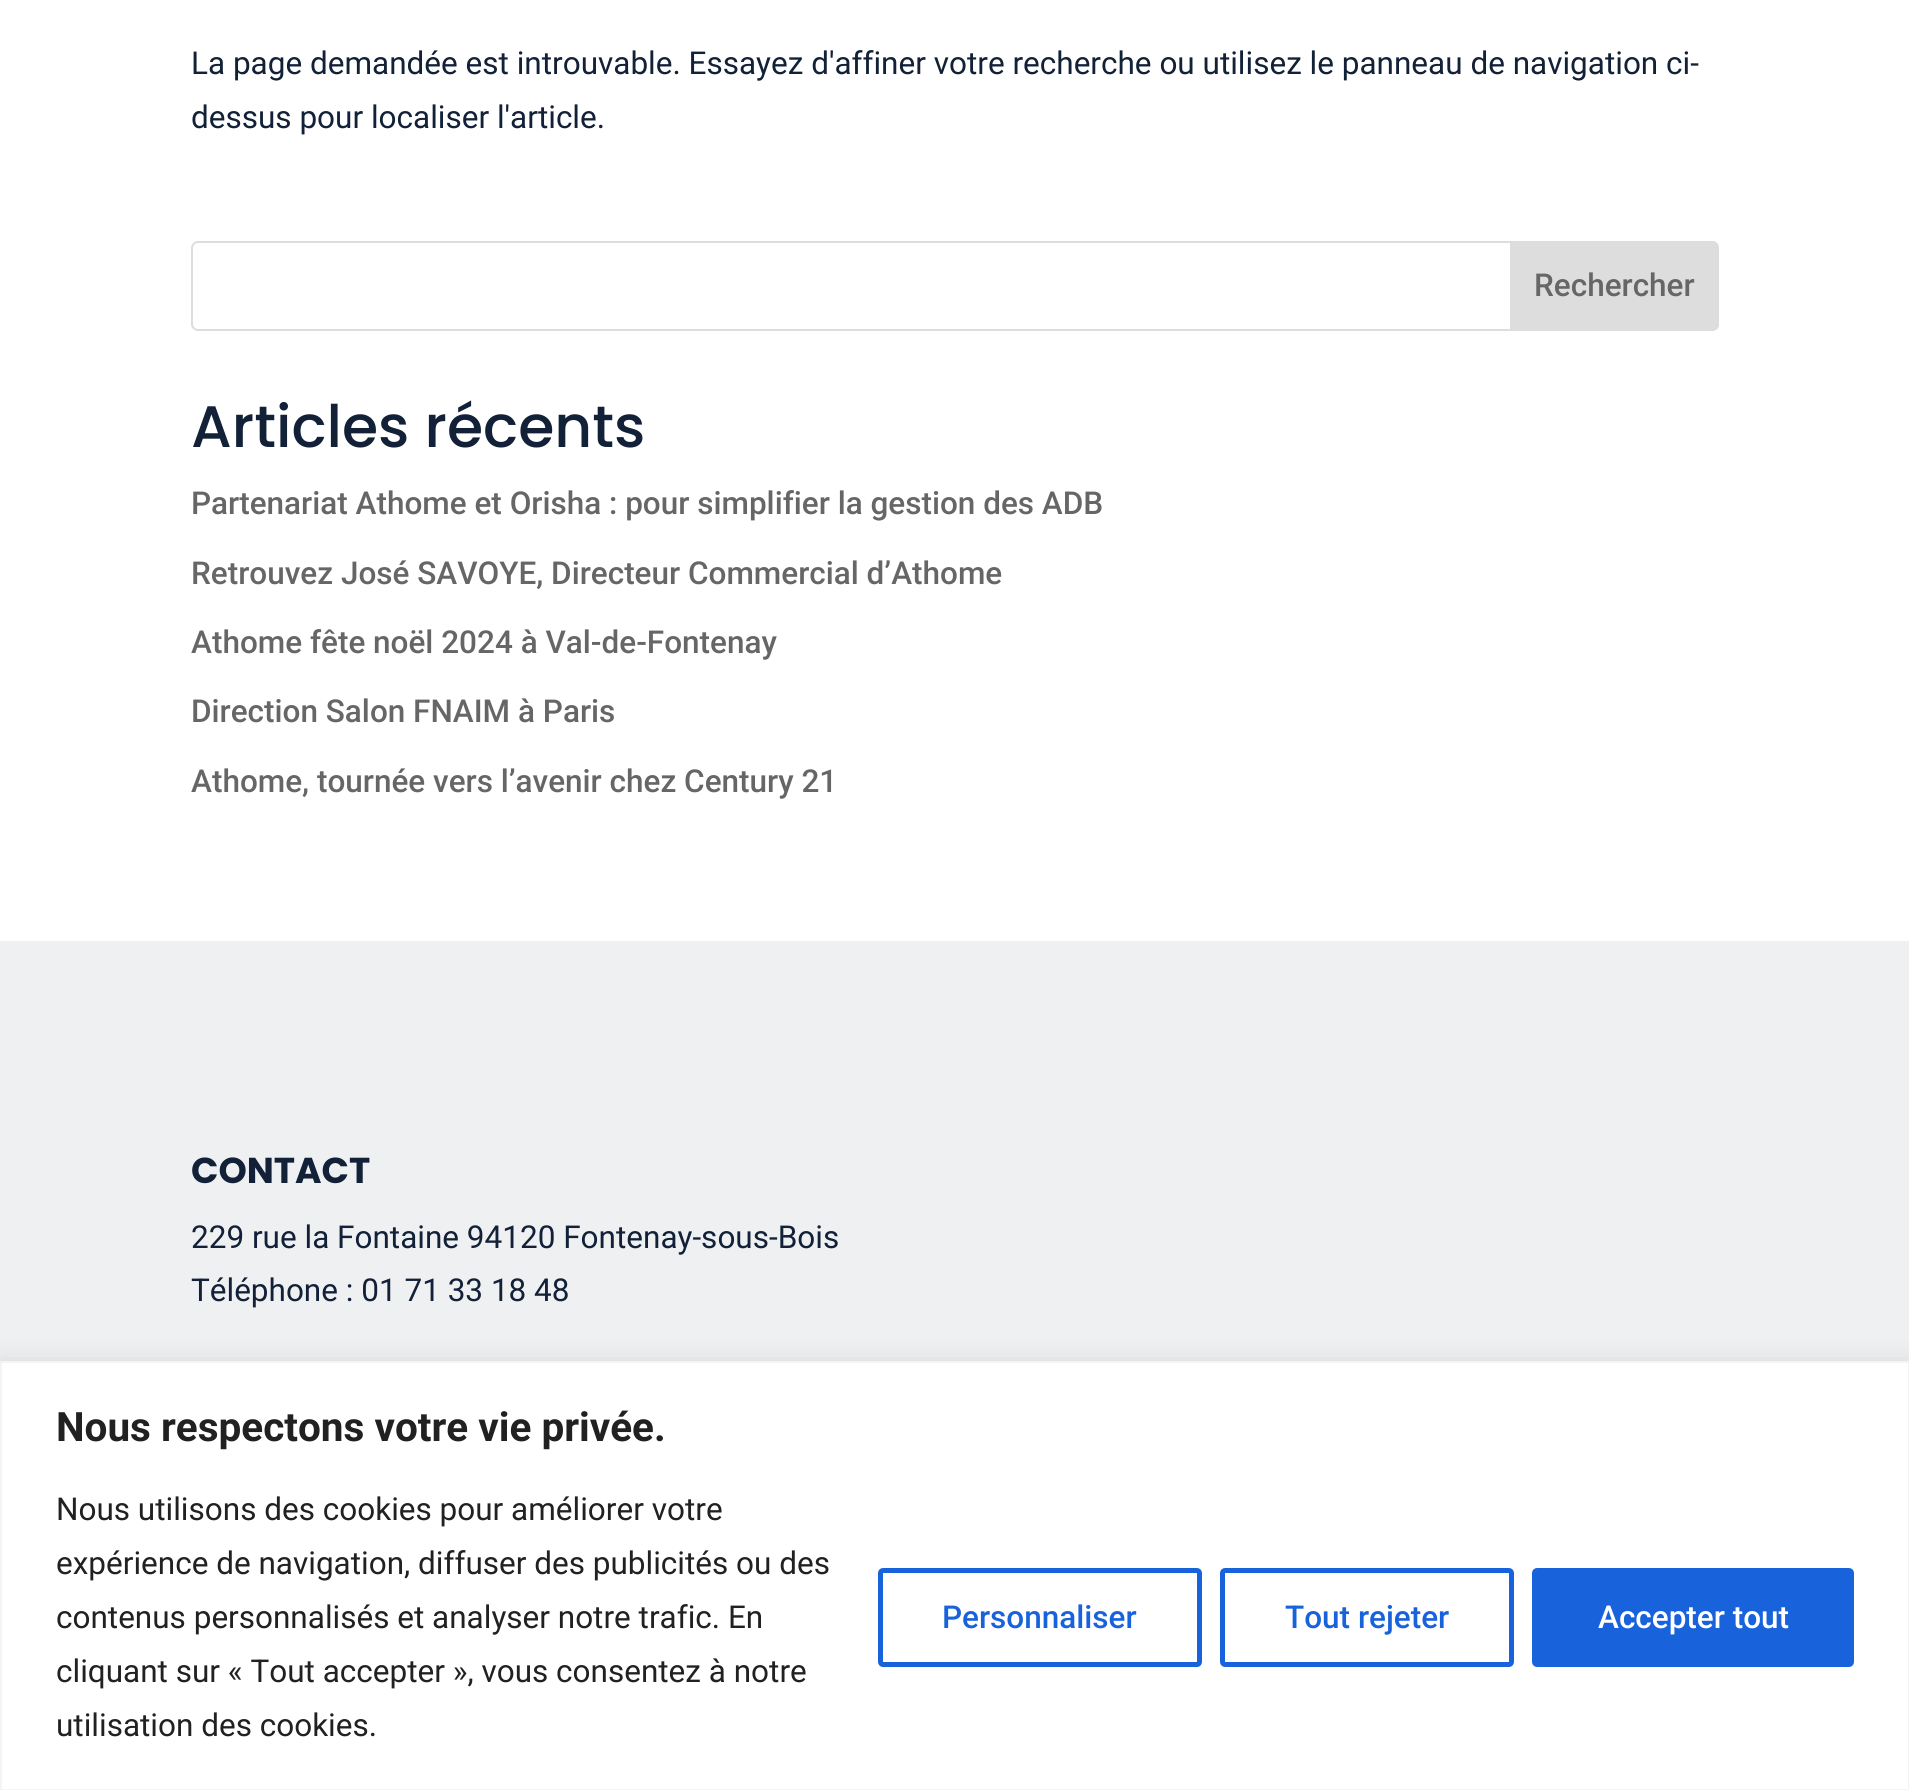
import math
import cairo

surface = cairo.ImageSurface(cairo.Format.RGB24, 1909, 1790)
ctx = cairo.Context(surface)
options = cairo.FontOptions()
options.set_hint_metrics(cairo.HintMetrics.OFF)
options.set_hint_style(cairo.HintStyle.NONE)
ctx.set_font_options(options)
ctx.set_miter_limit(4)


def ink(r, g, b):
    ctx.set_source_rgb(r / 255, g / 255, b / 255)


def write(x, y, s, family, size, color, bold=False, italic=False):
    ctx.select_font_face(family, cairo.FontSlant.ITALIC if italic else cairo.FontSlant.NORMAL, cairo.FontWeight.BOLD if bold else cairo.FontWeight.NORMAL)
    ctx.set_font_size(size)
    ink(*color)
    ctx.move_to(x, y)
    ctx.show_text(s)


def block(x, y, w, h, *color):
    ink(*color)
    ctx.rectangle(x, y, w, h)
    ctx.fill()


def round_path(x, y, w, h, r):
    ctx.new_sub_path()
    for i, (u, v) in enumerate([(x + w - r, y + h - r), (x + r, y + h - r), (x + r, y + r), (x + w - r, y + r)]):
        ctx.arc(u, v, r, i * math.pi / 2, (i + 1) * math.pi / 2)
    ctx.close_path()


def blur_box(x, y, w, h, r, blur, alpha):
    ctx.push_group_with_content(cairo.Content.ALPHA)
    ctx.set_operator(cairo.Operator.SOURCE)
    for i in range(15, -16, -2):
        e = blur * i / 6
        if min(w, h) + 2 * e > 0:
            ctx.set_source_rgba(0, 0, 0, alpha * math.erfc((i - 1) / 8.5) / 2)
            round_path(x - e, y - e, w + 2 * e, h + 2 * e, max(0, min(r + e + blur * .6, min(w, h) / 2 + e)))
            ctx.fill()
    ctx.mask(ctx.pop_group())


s1 = dict(family="Roboto", size=31.5, color=(18, 32, 56))
s2 = dict(family="Roboto Medium", size=31.5, color=(102, 102, 102))
s3 = dict(family="Poppins Medium", size=58.5, color=(18, 32, 56))
s4 = dict(family="Poppins", size=36, color=(18, 32, 56), bold=True)
s5 = dict(family="Roboto", size=40.5, color=(33, 33, 33), bold=True)
s6 = dict(family="Roboto", size=31.5, color=(33, 33, 33))
s7 = dict(family="Roboto Medium", size=31.5, color=(24, 99, 220))
s8 = dict(family="Roboto Medium", size=31.5, color=(255, 255, 255))

ink(255, 255, 255)
ctx.paint()
write(191, 74, "La page demandée est introuvable. Essayez d'affiner votre recherche ou utilisez le panneau de navigation ci-", **s1)
write(191, 128, "dessus pour localiser l'article.", **s1)
round_path(192, 242, 1526, 88, 6)
ink(221, 221, 221)
ctx.stroke()
ctx.new_path()
ctx.move_to(1511, 242)
ctx.line_to(1712, 242)
ctx.curve_to(1715.5, 242, 1718, 244.5, 1718, 248)
ctx.line_to(1718, 324)
ctx.curve_to(1718, 327.5, 1715.5, 330, 1712, 330)
ctx.line_to(1511, 330)
ctx.close_path()
ctx.fill_preserve()
ctx.stroke()
write(1534, 296, "Rechercher", **s2)
write(191, 447, "Articles récents", **s3)
write(191, 514, "Partenariat Athome et Orisha : pour simplifier la gestion des ADB", **s2)
write(191, 584, "Retrouvez José SAVOYE, Directeur Commercial d’Athome", **s2)
write(191, 653, "Athome fête noël 2024 à Val-de-Fontenay", **s2)
write(191, 722, "Direction Salon FNAIM à Paris", **s2)
write(191, 792, "Athome, tournée vers l’avenir chez Century 21", **s2)
block(0, 941, 1909, 420, 239, 240, 241)
write(191, 1183, "CONTACT", **s4)
write(191, 1248, "229 rue la Fontaine 94120 Fontenay-sous-Bois", **s1)
write(191, 1301, "Téléphone : 01 71 33 18 48", **s1)
ink(172, 171, 171)
blur_box(0, 1359, 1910, 430, 0, 11, 0.3)
ink(255, 255, 255)
ctx.rectangle(1, 1362, 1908, 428)
ctx.fill_preserve()
ink(244, 244, 244)
ctx.stroke()
write(56, 1441, "Nous respectons votre vie privée.", **s5)
write(56, 1520, "Nous utilisons des cookies pour améliorer votre", **s6)
write(56, 1574, "expérience de navigation, diffuser des publicités ou des", **s6)
write(56, 1628, "contenus personnalisés et analyser notre trafic. En", **s6)
write(56, 1682, "cliquant sur « Tout accepter », vous consentez à notre", **s6)
write(56, 1736, "utilisation des cookies.", **s6)
round_path(880.5, 1570.5, 319, 94, 2.5)
ink(24, 99, 220)
ctx.set_line_width(5)
ctx.stroke()
write(942, 1628, "Personnaliser", **s7)
round_path(1222.5, 1570.5, 289, 94, 2.5)
ctx.stroke()
write(1285, 1628, "Tout rejeter", **s7)
round_path(1534.5, 1570.5, 317, 94, 2.5)
ctx.fill_preserve()
ctx.stroke()
write(1598, 1628, "Accepter tout", **s8)
surface.write_to_png("screenshot.png")
